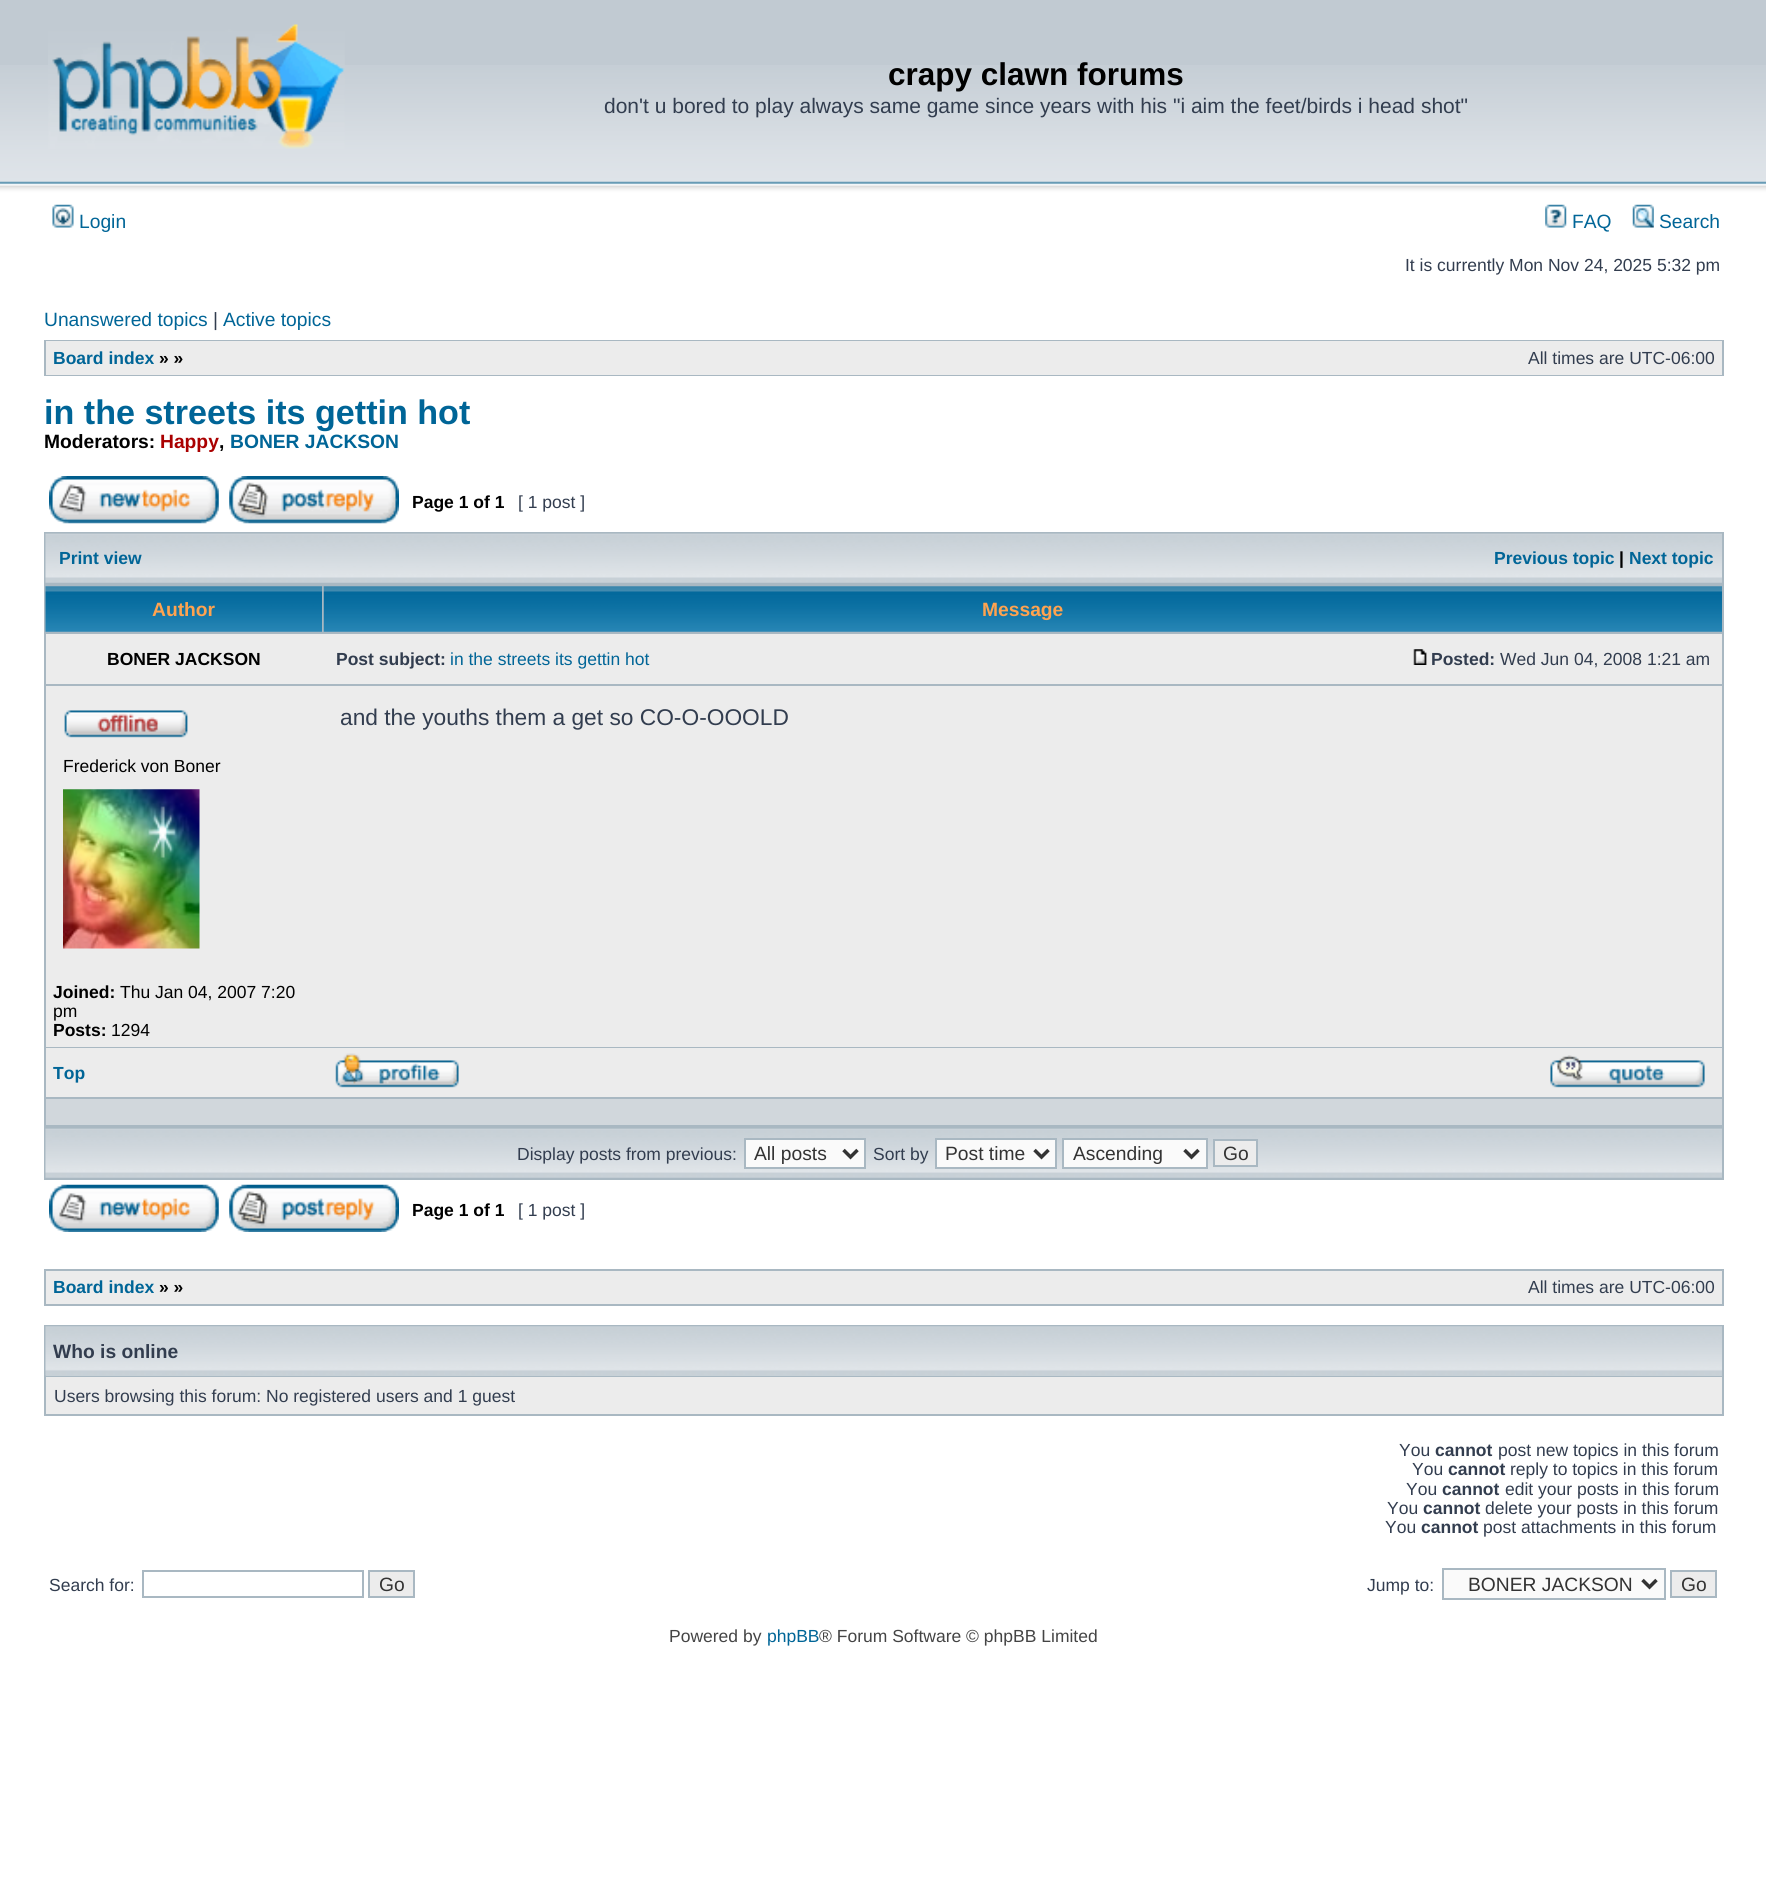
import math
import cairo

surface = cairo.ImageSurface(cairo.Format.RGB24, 1766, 1887)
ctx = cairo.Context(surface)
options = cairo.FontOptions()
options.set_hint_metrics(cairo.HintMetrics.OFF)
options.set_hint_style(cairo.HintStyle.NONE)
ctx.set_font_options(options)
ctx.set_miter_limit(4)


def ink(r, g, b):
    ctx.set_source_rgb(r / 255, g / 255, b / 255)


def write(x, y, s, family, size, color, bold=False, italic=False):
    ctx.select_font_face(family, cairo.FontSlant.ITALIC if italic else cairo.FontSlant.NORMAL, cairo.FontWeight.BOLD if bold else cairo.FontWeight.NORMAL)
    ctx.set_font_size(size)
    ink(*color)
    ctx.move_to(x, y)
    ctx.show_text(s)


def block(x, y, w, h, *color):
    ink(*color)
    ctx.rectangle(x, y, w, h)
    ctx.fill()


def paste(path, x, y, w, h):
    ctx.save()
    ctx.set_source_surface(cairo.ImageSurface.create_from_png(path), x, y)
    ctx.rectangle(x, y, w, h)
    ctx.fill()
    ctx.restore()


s1 = dict(family="Liberation Sans", size=31.5, color=(0, 0, 0), bold=True)
s2 = dict(family="Liberation Sans", size=21, color=(50, 61, 79))
s3 = dict(family="Liberation Sans", size=19.25, color=(0, 101, 151))
s4 = dict(family="Liberation Sans", size=17.5, color=(50, 61, 79))
s5 = dict(family="Liberation Sans", size=19.25, color=(50, 61, 79))
s6 = dict(family="Liberation Sans", size=17.5, color=(0, 101, 151), bold=True)
s7 = dict(family="Liberation Sans", size=17.5, color=(0, 0, 0), bold=True)
s8 = dict(family="Liberation Sans", size=34.1, color=(0, 101, 151), bold=True)
s9 = dict(family="Liberation Sans", size=19.25, color=(0, 0, 0), bold=True)
s10 = dict(family="Liberation Sans", size=19.25, color=(170, 0, 0), bold=True)
s11 = dict(family="Liberation Sans", size=19.25, color=(0, 101, 151), bold=True)
s12 = dict(family="Liberation Sans", size=19.25, color=(255, 163, 79), bold=True)
s13 = dict(family="Liberation Sans", size=17.5, color=(50, 61, 79), bold=True)
s14 = dict(family="Liberation Sans", size=17.5, color=(0, 101, 151))
s15 = dict(family="Liberation Sans", size=22.75, color=(50, 61, 79))
s16 = dict(family="Liberation Sans", size=17.5, color=(0, 0, 0))
s17 = dict(family="Liberation Sans", size=19.25, color=(51, 51, 51))
s18 = dict(family="Liberation Sans", size=19.25, color=(50, 61, 79), bold=True)
s19 = dict(family="Liberation Sans", size=17.5, color=(68, 68, 68))

ink(255, 255, 255)
ctx.paint()
block(0, 0, 1766, 65, 193, 202, 210)
paste("pic1.png", 0, 65, 1766, 136)
paste("pic2.png", 48, 24, 297, 125)
write(888, 85, "crapy clawn forums", **s1)
write(604, 113, "don't u bored to play always same game since years with his \"i aim the feet/birds i head shot\"", **s2)
paste("pic3.png", 52, 204, 22, 24)
write(79, 228, "Login", **s3)
paste("pic4.png", 1545, 204, 22, 24)
write(1572, 228, "FAQ", **s3)
paste("pic5.png", 1632, 204, 22, 24)
write(1659, 228, "Search", **s3)
write(1405, 271, "It is currently Mon Nov 24, 2025 5:32 pm", **s4)
write(44, 326, "Unanswered topics", **s3)
write(213, 326, "|", **s5)
write(223, 326, "Active topics", **s3)
block(44, 340, 1680, 36, 169, 184, 194)
block(46, 341, 1676, 34, 236, 236, 236)
write(53, 364, "Board index", **s6)
write(159, 364, "» »", **s7)
write(1528, 364, "All times are UTC-06:00", **s4)
write(44, 424, "in the streets its gettin hot", **s8)
write(44, 448, "Moderators:", **s9)
write(160, 448, "Happy", **s10)
write(219, 448, ",", **s9)
write(230, 448, "BONER JACKSON", **s11)
paste("pic6.png", 49, 476, 170, 48)
paste("pic7.png", 229, 476, 170, 48)
write(412, 508, "Page 1 of 1", **s7)
write(518, 508, "[ 1 post ]", **s4)
block(44, 532, 1680, 648, 169, 184, 194)
paste("pic8.png", 45, 533, 1677, 50)
write(59, 564, "Print view", **s6)
write(1494, 564, "Previous topic", **s6)
write(1619, 564, "|", **s7)
write(1629, 564, "Next topic", **s6)
paste("pic9.png", 45, 586, 277, 46)
write(152, 616, "Author", **s12)
paste("pic10.png", 323, 586, 1399, 46)
write(982, 616, "Message", **s12)
block(46, 634, 1676, 50, 236, 236, 236)
write(107, 665, "BONER JACKSON", **s7)
write(336, 665, "Post subject:", **s13)
write(450, 665, "in the streets its gettin hot", **s14)
paste("pic11.png", 1413, 649, 14, 16)
write(1431, 665, "Posted:", **s13)
write(1500, 665, "Wed Jun 04, 2008 1:21 am", **s4)
block(46, 686, 1676, 361, 236, 236, 236)
write(340, 725, "and the youths them a get so CO-O-OOOLD", **s15)
paste("pic12.png", 64, 710, 124, 28)
write(63, 772, "Frederick von Boner", **s16)
paste("pic13.png", 63, 789, 137, 160)
write(53, 998, "Joined:", **s7)
write(120, 998, "Thu Jan 04, 2007 7:20", **s16)
write(53, 1017, "pm", **s16)
write(53, 1036, "Posts:", **s7)
write(111, 1036, "1294", **s16)
block(46, 1048, 1676, 49, 236, 236, 236)
write(53, 1079, "Top", **s6)
paste("pic14.png", 335, 1053, 124, 35)
paste("pic15.png", 1550, 1055, 155, 33)
block(46, 1099, 1676, 26, 209, 215, 220)
paste("pic16.png", 45, 1128, 1677, 50)
write(517, 1160, "Display posts from previous:", **s4)
ink(250, 250, 250)
ctx.rectangle(745, 1139, 120, 29)
ctx.fill_preserve()
ink(169, 184, 194)
ctx.stroke()
ctx.new_path()
ctx.move_to(843.5, 1150)
ctx.line_to(850.5, 1157)
ctx.line_to(857.5, 1150)
ink(51, 51, 51)
ctx.set_line_width(3.5)
ctx.stroke()
write(754, 1160, "All posts", **s17)
write(873, 1160, "Sort by", **s4)
ink(250, 250, 250)
ctx.rectangle(936, 1139, 120, 29)
ctx.fill_preserve()
ink(169, 184, 194)
ctx.set_line_width(2)
ctx.stroke()
ctx.new_path()
ctx.move_to(1034.5, 1150)
ctx.line_to(1041.5, 1157)
ctx.line_to(1048.5, 1150)
ink(51, 51, 51)
ctx.set_line_width(3.5)
ctx.stroke()
write(945, 1160, "Post time", **s17)
ink(250, 250, 250)
ctx.rectangle(1063, 1139, 144, 29)
ctx.fill_preserve()
ink(169, 184, 194)
ctx.set_line_width(2)
ctx.stroke()
ctx.new_path()
ctx.move_to(1184.5, 1150)
ctx.line_to(1191.5, 1157)
ctx.line_to(1198.5, 1150)
ink(51, 51, 51)
ctx.set_line_width(3.5)
ctx.stroke()
write(1073, 1160, "Ascending", **s17)
ink(236, 236, 236)
ctx.rectangle(1214, 1140, 43, 26)
ctx.fill_preserve()
ink(169, 184, 194)
ctx.set_line_width(2)
ctx.stroke()
write(1223, 1160, "Go", **s17)
paste("pic17.png", 49, 1184, 170, 48)
paste("pic18.png", 229, 1184, 170, 48)
write(412, 1216, "Page 1 of 1", **s7)
write(518, 1216, "[ 1 post ]", **s4)
block(44, 1269, 1680, 37, 169, 184, 194)
block(46, 1271, 1676, 33, 236, 236, 236)
write(53, 1293, "Board index", **s6)
write(159, 1293, "» »", **s7)
write(1528, 1293, "All times are UTC-06:00", **s4)
block(44, 1325, 1680, 91, 169, 184, 194)
block(46, 1375, 1676, 1, 199, 208, 215)
paste("pic19.png", 45, 1326, 1677, 50)
write(53, 1358, "Who is online", **s18)
block(46, 1377, 1676, 37, 236, 236, 236)
write(54, 1402, "Users browsing this forum: No registered users and 1 guest", **s4)
write(1399, 1456, "You", **s4)
write(1435, 1456, "cannot", **s13)
write(1498, 1456, "post new topics in this forum", **s4)
write(1412, 1475, "You", **s4)
write(1448, 1475, "cannot", **s13)
write(1510, 1475, "reply to topics in this forum", **s4)
write(1406, 1495, "You", **s4)
write(1442, 1495, "cannot", **s13)
write(1505, 1495, "edit your posts in this forum", **s4)
write(1387, 1514, "You", **s4)
write(1423, 1514, "cannot", **s13)
write(1485, 1514, "delete your posts in this forum", **s4)
write(1385, 1533, "You", **s4)
write(1421, 1533, "cannot", **s13)
write(1483, 1533, "post attachments in this forum", **s4)
write(49, 1591, "Search for:", **s4)
ctx.rectangle(143, 1571, 220, 26)
ink(169, 184, 194)
ctx.stroke()
ink(236, 236, 236)
ctx.rectangle(369, 1571, 45, 26)
ctx.fill_preserve()
ink(169, 184, 194)
ctx.stroke()
write(379, 1591, "Go", **s17)
write(1367, 1591, "Jump to:", **s4)
ink(250, 250, 250)
ctx.rectangle(1443, 1569, 222, 30)
ctx.fill_preserve()
ink(169, 184, 194)
ctx.stroke()
ctx.new_path()
ctx.move_to(1642.5, 1580)
ctx.line_to(1649.5, 1587)
ctx.line_to(1656.5, 1580)
ink(51, 51, 51)
ctx.set_line_width(3.5)
ctx.stroke()
write(1468, 1591, "BONER JACKSON", **s17)
ink(236, 236, 236)
ctx.rectangle(1671, 1571, 45, 26)
ctx.fill_preserve()
ink(169, 184, 194)
ctx.set_line_width(2)
ctx.stroke()
write(1681, 1591, "Go", **s17)
write(669, 1642, "Powered by", **s19)
write(767, 1642, "phpBB", **s14)
write(819, 1642, "® Forum Software © phpBB Limited", **s19)
surface.write_to_png("screenshot.png")
